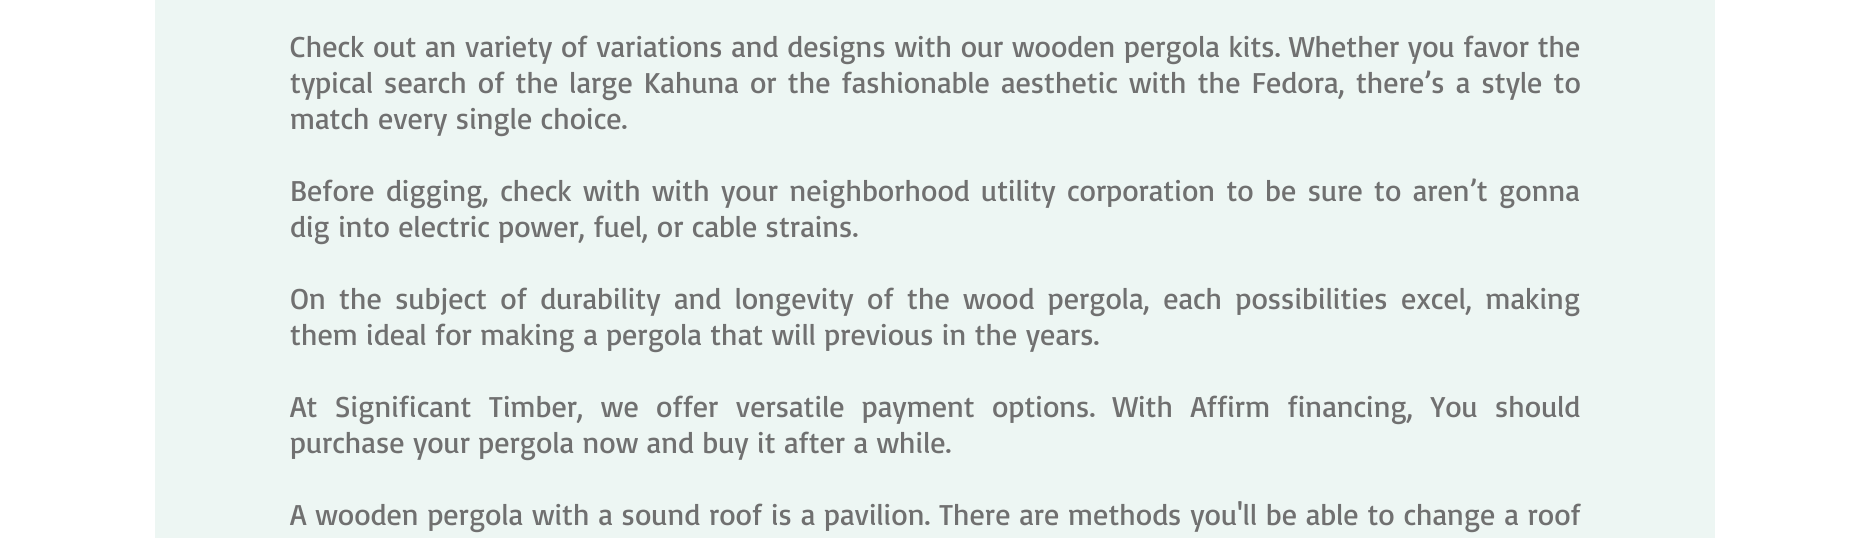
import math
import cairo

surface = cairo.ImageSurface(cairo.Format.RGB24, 1869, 538)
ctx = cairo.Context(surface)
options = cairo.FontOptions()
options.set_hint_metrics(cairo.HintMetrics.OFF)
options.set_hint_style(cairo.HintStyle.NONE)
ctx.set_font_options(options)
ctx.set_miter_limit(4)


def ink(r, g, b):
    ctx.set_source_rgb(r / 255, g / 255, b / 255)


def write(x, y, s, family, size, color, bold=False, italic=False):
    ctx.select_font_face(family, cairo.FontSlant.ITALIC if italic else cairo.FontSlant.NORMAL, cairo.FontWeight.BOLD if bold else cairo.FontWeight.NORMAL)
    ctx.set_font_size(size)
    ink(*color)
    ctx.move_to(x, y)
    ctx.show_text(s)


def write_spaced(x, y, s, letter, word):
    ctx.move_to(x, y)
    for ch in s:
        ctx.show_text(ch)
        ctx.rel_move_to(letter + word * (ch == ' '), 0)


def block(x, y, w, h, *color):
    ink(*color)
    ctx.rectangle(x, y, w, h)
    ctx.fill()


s1 = dict(family="Basic", size=30, color=(112, 112, 112))

ink(255, 255, 255)
ctx.paint()
block(155, 0, 1560, 538, 237, 246, 243)
ctx.select_font_face("Basic")
ctx.set_font_size(30)
ink(112, 112, 112)
write_spaced(290, 57, "Check out an variety of variations and designs with our wooden pergola kits. Whether you favor the", 0, 0.25)
write_spaced(290, 93, "typical search of the large Kahuna or the fashionable aesthetic with the Fedora, there’s a style to", 0, 2.75)
write(290, 129, "match every single choice.", **s1)
write_spaced(290, 201, "Before digging, check with with your neighborhood utility corporation to be sure to aren’t gonna", 0, 3)
write(290, 237, "dig into electric power, fuel, or cable strains.", **s1)
write_spaced(290, 309, "On the subject of durability and longevity of the wood pergola, each possibilities excel, making", 0, 5)
write(290, 345, "them ideal for making a pergola that will previous in the years.", **s1)
write_spaced(290, 417, "At Significant Timber, we offer versatile payment options. With Affirm financing, You should", 0, 9)
write(290, 453, "purchase your pergola now and buy it after a while.", **s1)
write_spaced(290, 525, "A wooden pergola with a sound roof is a pavilion. There are methods you'll be able to change a roof", 0, 0.4)
surface.write_to_png("screenshot.png")
